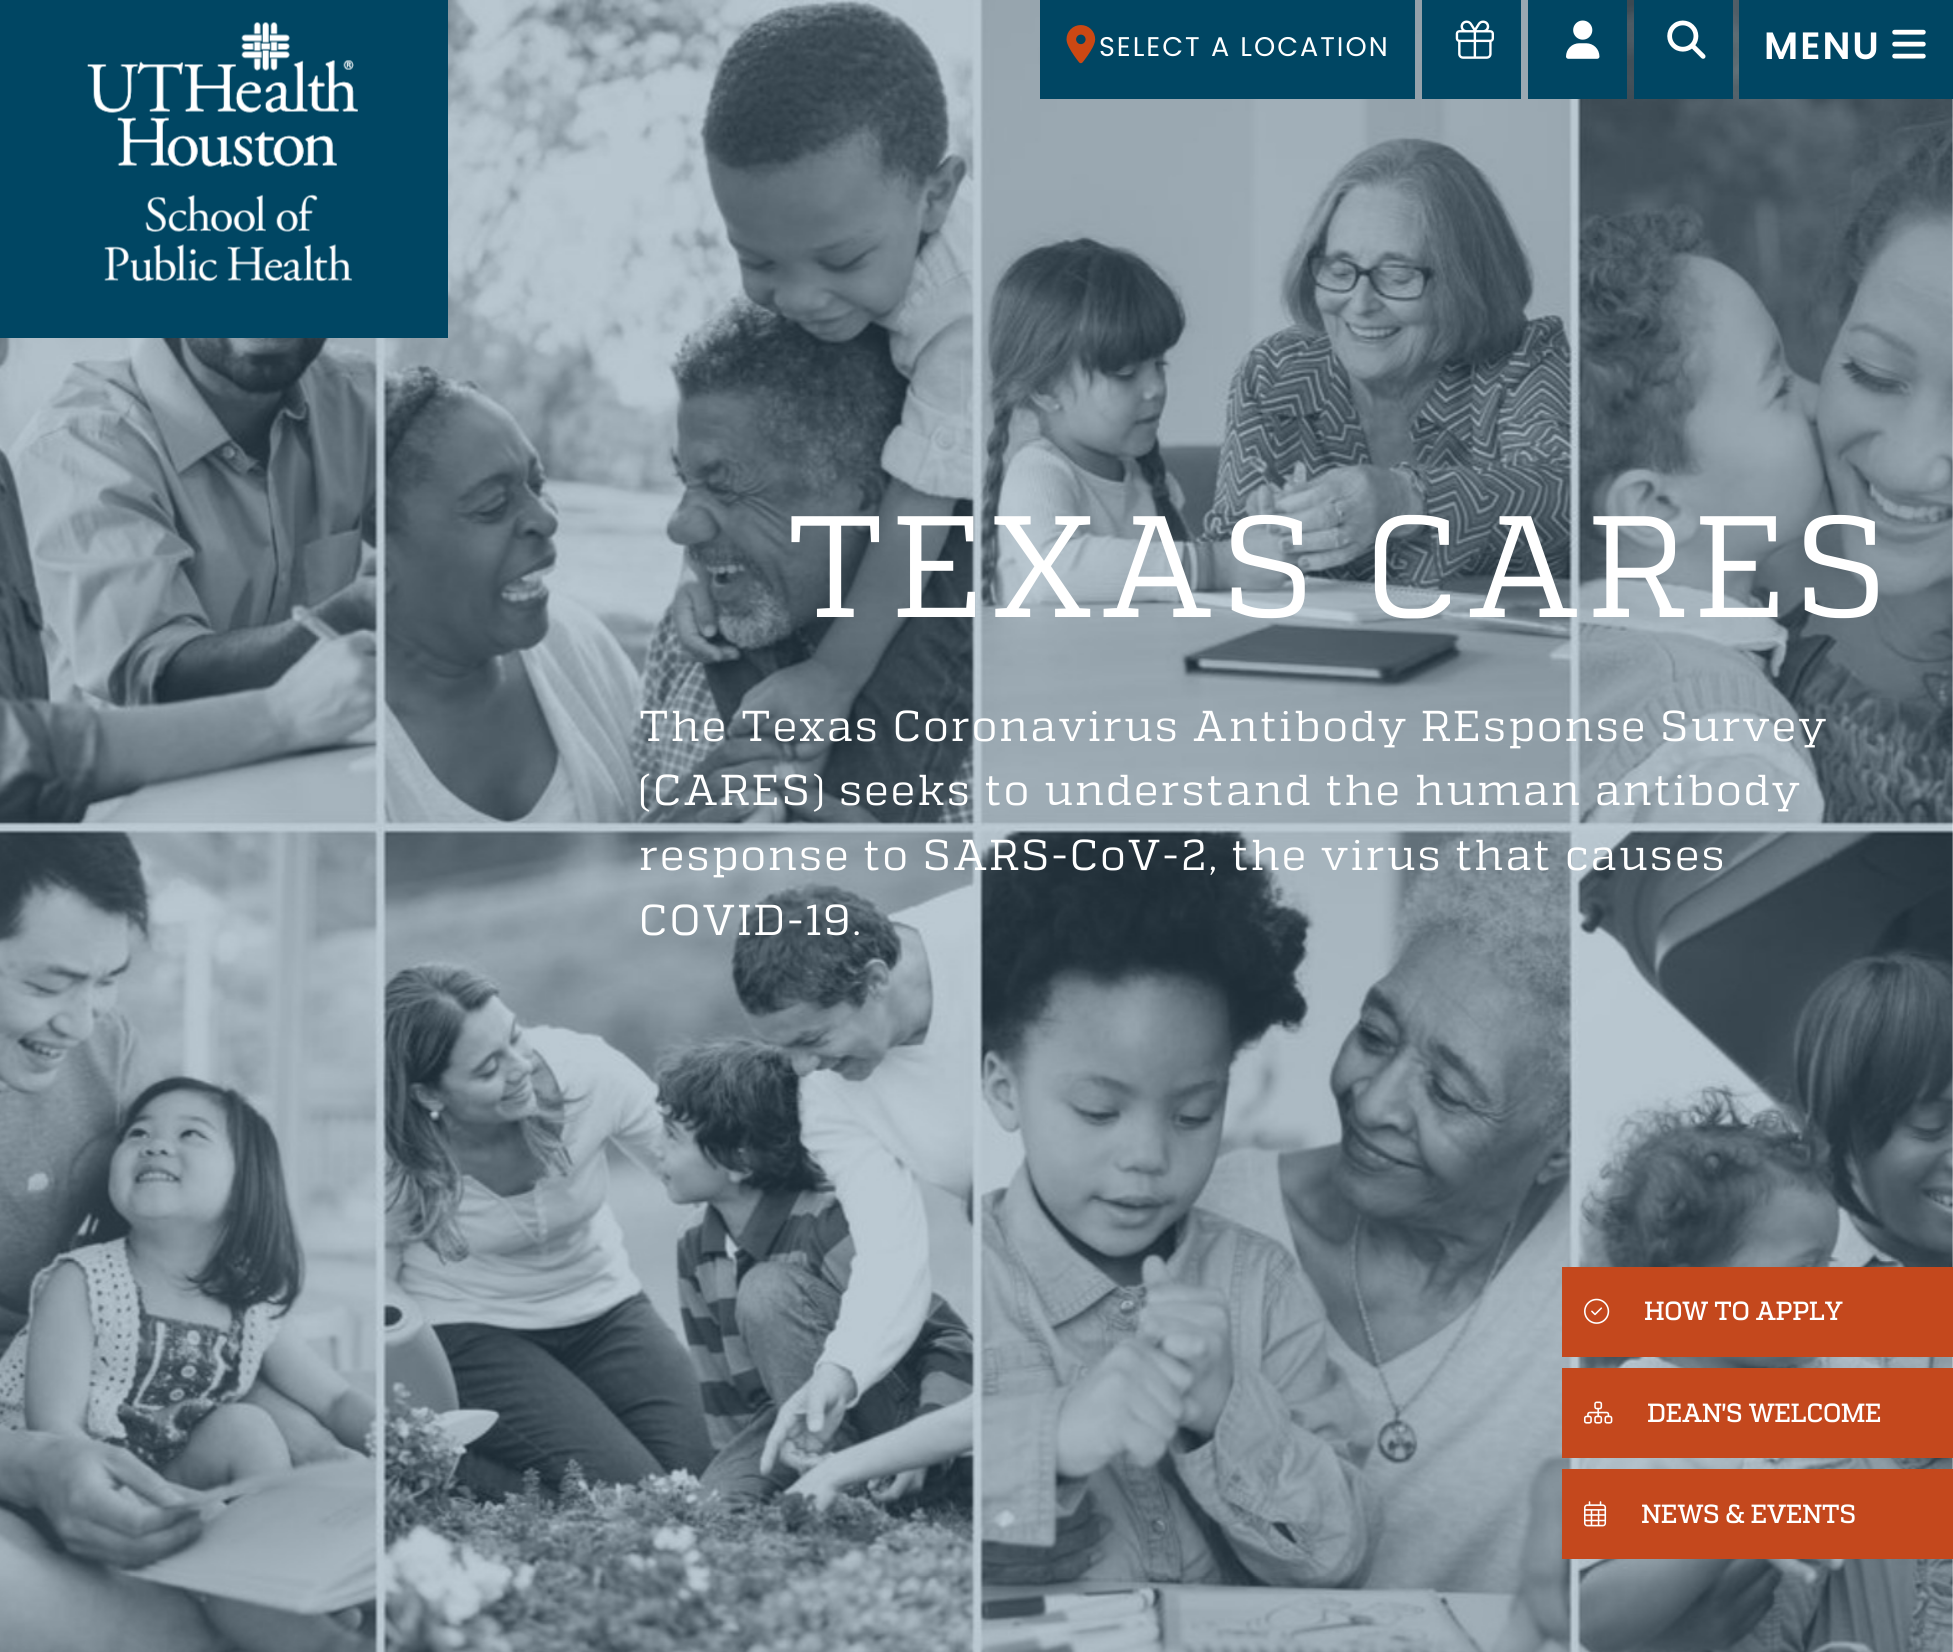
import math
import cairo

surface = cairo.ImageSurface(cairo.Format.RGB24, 1953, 1652)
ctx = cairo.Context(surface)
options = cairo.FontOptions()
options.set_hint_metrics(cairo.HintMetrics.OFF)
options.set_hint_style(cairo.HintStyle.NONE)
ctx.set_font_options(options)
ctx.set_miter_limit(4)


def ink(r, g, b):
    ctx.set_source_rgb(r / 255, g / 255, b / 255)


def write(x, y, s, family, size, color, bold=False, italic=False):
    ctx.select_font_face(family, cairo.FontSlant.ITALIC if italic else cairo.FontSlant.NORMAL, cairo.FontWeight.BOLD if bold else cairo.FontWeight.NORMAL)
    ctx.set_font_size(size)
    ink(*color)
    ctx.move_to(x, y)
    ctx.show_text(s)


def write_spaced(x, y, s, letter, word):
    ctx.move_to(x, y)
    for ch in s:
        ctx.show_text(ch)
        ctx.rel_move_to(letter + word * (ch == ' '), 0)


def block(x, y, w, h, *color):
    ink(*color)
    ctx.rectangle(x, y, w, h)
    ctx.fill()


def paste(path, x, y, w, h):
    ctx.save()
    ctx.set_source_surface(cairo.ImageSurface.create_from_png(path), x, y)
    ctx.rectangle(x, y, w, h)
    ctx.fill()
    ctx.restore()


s1 = dict(family="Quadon", size=25.25, color=(255, 255, 255), bold=True)

ink(255, 255, 255)
ctx.paint()
paste("pic7.png", 0, 0, 1953, 1652)
block(0, 0, 448, 338, 0, 70, 99)
paste("pic1.png", 87, 22, 271, 260)
block(1040, 0, 375, 99, 0, 70, 99)
paste("pic2.png", 1066, 25, 30, 39)
ctx.select_font_face("Poppins")
ctx.set_font_size(27)
ink(255, 255, 255)
write_spaced(1099, 56, "SELECT A LOCATION", 2, 0)
block(1422, 0, 99, 99, 0, 70, 99)
paste("pic3.png", 1455, 20, 39, 39)
block(1528, 0, 99, 99, 0, 70, 99)
paste("pic4.png", 1566, 20, 34, 39)
block(1634, 0, 99, 99, 0, 70, 99)
paste("pic5.png", 1667, 20, 39, 39)
block(1739, 0, 214, 99, 0, 70, 99)
ctx.select_font_face("Poppins SemiBold")
ctx.set_font_size(38)
ink(255, 255, 255)
write_spaced(1764, 59, "MENU", 2, 0)
paste("pic6.png", 1892, 29, 34, 30)
ctx.select_font_face("Quadon")
ctx.set_font_size(144)
write_spaced(786, 617, "TEXAS CARES", 7.25, 0)
ctx.set_font_size(43.2)
write_spaced(639, 741, "The Texas Coronavirus Antibody REsponse Survey", 2.15, 0)
write_spaced(639, 805, "(CARES) seeks to understand the human antibody", 2.15, 0)
write_spaced(639, 870, "response to SARS-CoV-2, the virus that causes", 2.15, 0)
write_spaced(639, 935, "COVID-19.", 2.15, 0)
block(1562, 1267, 391, 90, 196, 72, 29)
paste("pic8.png", 1584, 1298, 26, 26)
write(1644, 1320, "HOW TO APPLY", **s1)
block(1562, 1368, 391, 90, 196, 72, 29)
paste("pic9.png", 1584, 1401, 29, 23)
write(1647, 1422, "DEAN'S WELCOME", **s1)
block(1562, 1469, 391, 90, 196, 72, 29)
paste("pic10.png", 1584, 1501, 23, 26)
write(1641, 1523, "NEWS & EVENTS", **s1)
surface.write_to_png("screenshot.png")
